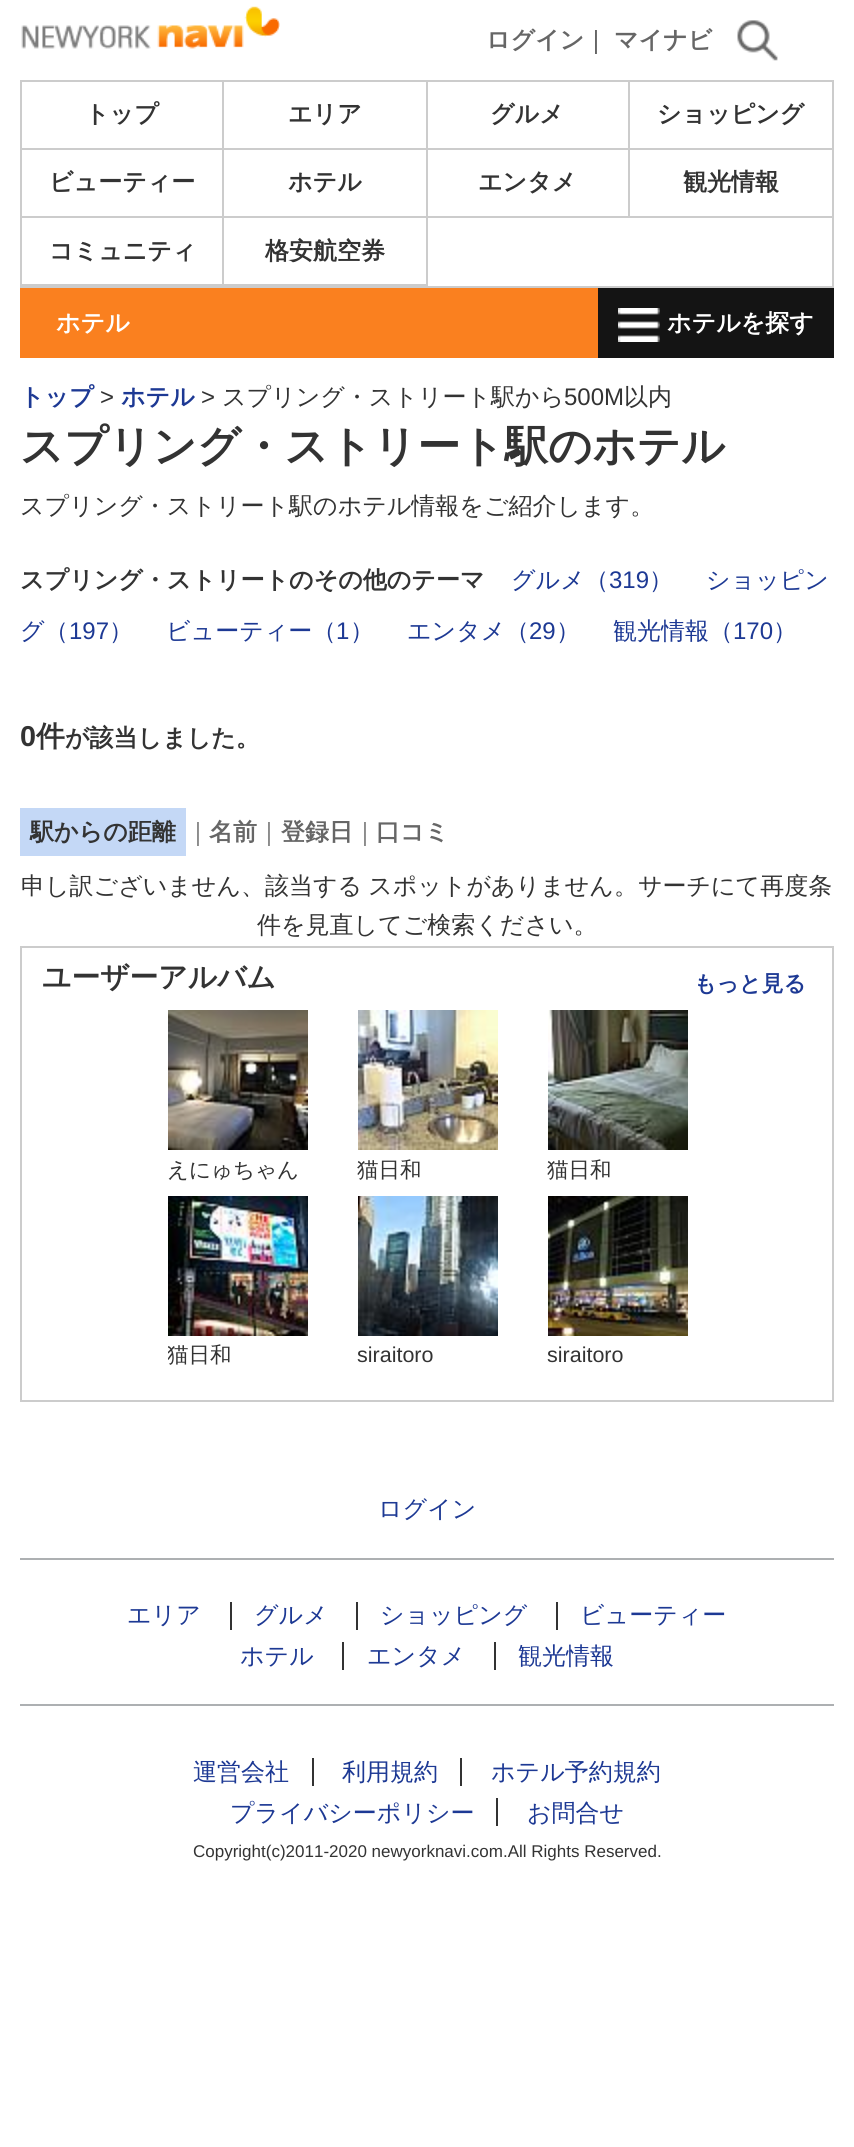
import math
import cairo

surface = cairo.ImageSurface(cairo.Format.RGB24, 854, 2147)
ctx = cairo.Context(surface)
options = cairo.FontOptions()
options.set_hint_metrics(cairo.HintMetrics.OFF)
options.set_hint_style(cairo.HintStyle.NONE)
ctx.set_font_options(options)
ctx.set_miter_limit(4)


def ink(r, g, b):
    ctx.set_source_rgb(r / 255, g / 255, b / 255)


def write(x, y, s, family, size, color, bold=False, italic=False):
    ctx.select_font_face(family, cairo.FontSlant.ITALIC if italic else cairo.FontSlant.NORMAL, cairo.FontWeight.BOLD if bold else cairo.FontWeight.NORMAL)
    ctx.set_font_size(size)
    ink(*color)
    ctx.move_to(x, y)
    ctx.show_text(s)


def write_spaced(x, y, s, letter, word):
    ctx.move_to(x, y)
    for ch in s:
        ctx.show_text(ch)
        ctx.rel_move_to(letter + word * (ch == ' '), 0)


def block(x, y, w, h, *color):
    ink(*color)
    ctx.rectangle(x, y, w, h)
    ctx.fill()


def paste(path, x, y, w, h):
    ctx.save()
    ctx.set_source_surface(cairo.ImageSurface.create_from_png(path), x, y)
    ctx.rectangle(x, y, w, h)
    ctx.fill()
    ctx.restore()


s1 = dict(family="WenQuanYi Zen Hei", size=24, color=(102, 102, 102), bold=True)
s2 = dict(family="WenQuanYi Zen Hei Medium", size=24, color=(51, 51, 51))
s3 = dict(family="WenQuanYi Zen Hei", size=24, color=(51, 51, 51), bold=True)
s4 = dict(family="WenQuanYi Zen Hei", size=24, color=(255, 255, 255), bold=True)
s5 = dict(family="WenQuanYi Zen Hei", size=24, color=(29, 57, 148), bold=True)
s6 = dict(family="Liberation Sans", size=24, color=(51, 51, 51))
s7 = dict(family="WenQuanYi Zen Hei", size=43.25, color=(51, 51, 51), bold=True)
s8 = dict(family="WenQuanYi Zen Hei Medium", size=24, color=(29, 57, 148))
s9 = dict(family="Liberation Sans", size=24, color=(29, 57, 148))
s10 = dict(family="Liberation Sans", size=28.75, color=(51, 51, 51), bold=True)
s11 = dict(family="WenQuanYi Zen Hei", size=28.75, color=(51, 51, 51), bold=True)
s12 = dict(family="WenQuanYi Zen Hei Medium", size=24, color=(102, 102, 102))
s13 = dict(family="WenQuanYi Zen Hei", size=22, color=(29, 57, 148), bold=True)
s14 = dict(family="WenQuanYi Zen Hei Medium", size=21.5, color=(51, 51, 51))
s15 = dict(family="Liberation Sans", size=21.5, color=(51, 51, 51))
s16 = dict(family="Liberation Sans", size=17, color=(51, 51, 51))

ink(255, 255, 255)
ctx.paint()
paste("pic1.png", 21, 6, 259, 43)
write(486, 48, "ログイン", **s1)
write(584, 48, "｜", **s2)
write(614, 48, "マイナビ", **s1)
paste("pic2.png", 737, 20, 41, 41)
block(20, 80, 814, 2, 204, 204, 204)
block(20, 286, 814, 2, 204, 204, 204)
block(832, 82, 2, 204, 204, 204, 204)
block(20, 82, 2, 204, 204, 204, 204)
block(222, 82, 2, 204, 204, 204, 204)
block(22, 148, 202, 2, 204, 204, 204)
write(85, 122, "トップ", **s3)
block(426, 82, 2, 204, 204, 204, 204)
block(224, 148, 204, 2, 204, 204, 204)
write(288, 122, "エリア", **s3)
block(628, 82, 2, 136, 204, 204, 204)
block(428, 148, 404, 2, 204, 204, 204)
write(490, 122, "グルメ", **s3)
write(657, 122, "ショッピング", **s3)
block(22, 216, 810, 2, 204, 204, 204)
write(49, 190, "ビューティー", **s3)
write(288, 190, "ホテル", **s3)
write(478, 190, "エンタメ", **s3)
write(683, 190, "観光情報", **s3)
block(22, 284, 406, 2, 204, 204, 204)
write(49, 259, "コミュニティ", **s3)
write(265, 259, "格安航空券", **s3)
block(20, 288, 578, 70, 250, 128, 31)
write(56, 331, "ホテル", **s4)
block(598, 288, 236, 70, 20, 20, 20)
paste("pic3.png", 618, 308, 42, 34)
write(667, 331, "ホテルを探す", **s4)
write(20, 405, "トップ", **s5)
write(100, 405, ">", **s6)
write(121, 405, "ホテル", **s5)
write(201, 405, ">", **s6)
write(222, 405, "スプリング・ストリート駅から", **s2)
write(564, 405, "500M", **s6)
write(624, 405, "以内", **s2)
write(20, 461, "スプリング・ストリート駅のホテル", **s7)
write(20, 514, "スプリング・ストリート駅のホテル情報をご紹介します。", **s2)
write(20, 588, "スプリング・ストリートのその他のテーマ", **s3)
write(511, 588, "グルメ（", **s8)
write(609, 588, "319", **s9)
write(649, 588, "）", **s8)
write(706, 588, "ショッピン", **s8)
write(20, 639, "グ（", **s8)
write(69, 639, "197", **s9)
write(109, 639, "）", **s8)
write(166, 639, "ビューティー（", **s8)
write(336, 639, "1", **s9)
write(350, 639, "）", **s8)
write(407, 639, "エンタメ（", **s8)
write(529, 639, "29", **s9)
write(556, 639, "）", **s8)
write(613, 639, "観光情報（", **s8)
write(733, 639, "170", **s9)
write(773, 639, "）", **s8)
write(20, 746, "0", **s10)
write(36, 746, "件", **s11)
write(65, 746, "が該当しました。", **s3)
block(20, 808, 166, 48, 196, 216, 246)
write(30, 840, "駅からの距離", **s3)
write(186, 840, "｜", **s12)
write(209, 840, "名前", **s1)
write(257, 840, "｜", **s12)
write(281, 840, "登録日", **s1)
write(353, 840, "｜", **s12)
write(376, 840, "口コミ", **s1)
ctx.select_font_face("WenQuanYi Zen Hei Medium")
ink(51, 51, 51)
write_spaced(21, 894, "申し訳ございません、該当する スポットがありません。サーチにて再度条", 0, -1)
write(257, 933, "件を見直してご検索ください。", **s2)
ctx.rectangle(21, 947, 812, 454)
ink(204, 204, 204)
ctx.stroke()
write(42, 987, "ユーザーアルバム", **s11)
write(694, 991, "もっと見る", **s13)
paste("pic4.png", 168, 1010, 140, 140)
write(167, 1177, "えにゅちゃん", **s14)
paste("pic5.png", 358, 1010, 140, 140)
write(357, 1177, "猫日和", **s14)
paste("pic6.png", 548, 1010, 140, 140)
write(547, 1177, "猫日和", **s14)
paste("pic7.png", 168, 1196, 140, 140)
ctx.save()
ctx.rectangle(168, 1010, 520, 370)
ctx.clip()
write(167, 1362, "猫日和", **s14)
ctx.restore()
paste("pic8.png", 358, 1196, 140, 140)
write(357, 1362, "siraitoro", **s15)
paste("pic9.png", 548, 1196, 140, 140)
write(547, 1362, "siraitoro", **s15)
block(20, 1558, 814, 2, 173, 176, 178)
write(378, 1517, "ログイン", **s8)
write(127, 1623, "エリア", **s8)
block(230, 1602, 2, 28, 51, 51, 51)
write(254, 1623, "グルメ", **s8)
block(356, 1602, 2, 28, 51, 51, 51)
write(380, 1623, "ショッピング", **s8)
block(556, 1602, 2, 28, 51, 51, 51)
write(580, 1623, "ビューティー", **s8)
block(20, 1704, 814, 2, 173, 176, 178)
write(240, 1664, "ホテル", **s8)
block(342, 1642, 2, 28, 51, 51, 51)
write(367, 1664, "エンタメ", **s8)
block(494, 1642, 2, 28, 51, 51, 51)
write(518, 1664, "観光情報", **s8)
write(193, 1780, "運営会社", **s8)
block(312, 1758, 2, 28, 51, 51, 51)
write(342, 1780, "利用規約", **s8)
block(460, 1758, 2, 28, 51, 51, 51)
write(491, 1780, "ホテル予約規約", **s8)
write(230, 1821, "プライバシーポリシー", **s8)
block(496, 1798, 2, 28, 51, 51, 51)
write(527, 1821, "お問合せ", **s8)
write(193, 1857, "Copyright(c)2011-2020 newyorknavi.com.All Rights Reserved.", **s16)
surface.write_to_png("screenshot.png")
